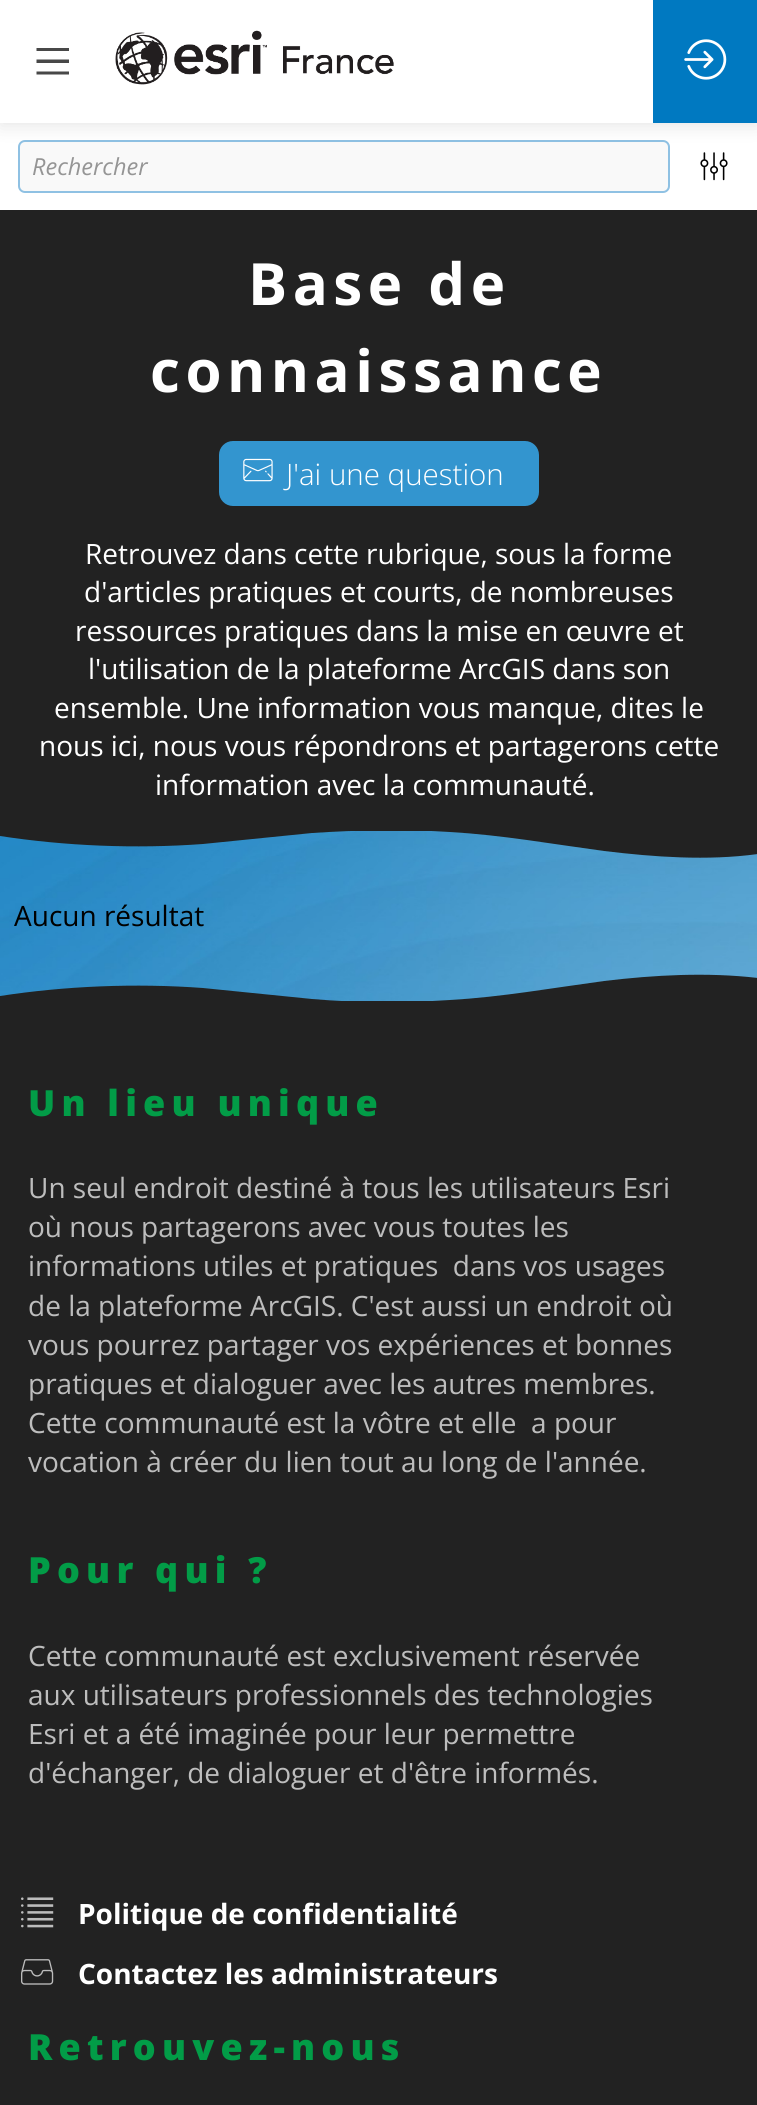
import math
import cairo

surface = cairo.ImageSurface(cairo.Format.RGB24, 757, 2105)
ctx = cairo.Context(surface)
options = cairo.FontOptions()
options.set_hint_metrics(cairo.HintMetrics.OFF)
options.set_hint_style(cairo.HintStyle.NONE)
ctx.set_font_options(options)
ctx.set_miter_limit(4)


def ink(r, g, b):
    ctx.set_source_rgb(r / 255, g / 255, b / 255)


def write(x, y, s, family, size, color, bold=False, italic=False):
    ctx.select_font_face(family, cairo.FontSlant.ITALIC if italic else cairo.FontSlant.NORMAL, cairo.FontWeight.BOLD if bold else cairo.FontWeight.NORMAL)
    ctx.set_font_size(size)
    ink(*color)
    ctx.move_to(x, y)
    ctx.show_text(s)


def write_spaced(x, y, s, letter, word):
    ctx.move_to(x, y)
    for ch in s:
        ctx.show_text(ch)
        ctx.rel_move_to(letter + word * (ch == ' '), 0)


def block(x, y, w, h, *color):
    ink(*color)
    ctx.rectangle(x, y, w, h)
    ctx.fill()


def round_path(x, y, w, h, r):
    ctx.new_sub_path()
    for i, (u, v) in enumerate([(x + w - r, y + h - r), (x + r, y + h - r), (x + r, y + r), (x + w - r, y + r)]):
        ctx.arc(u, v, r, i * math.pi / 2, (i + 1) * math.pi / 2)
    ctx.close_path()


def blur_box(x, y, w, h, r, blur, alpha):
    ctx.push_group_with_content(cairo.Content.ALPHA)
    ctx.set_operator(cairo.Operator.SOURCE)
    for i in range(15, -16, -2):
        e = blur * i / 6
        if min(w, h) + 2 * e > 0:
            ctx.set_source_rgba(0, 0, 0, alpha * math.erfc((i - 1) / 8.5) / 2)
            round_path(x - e, y - e, w + 2 * e, h + 2 * e, max(0, min(r + e + blur * .6, min(w, h) / 2 + e)))
            ctx.fill()
    ctx.mask(ctx.pop_group())


def paste(path, x, y, w, h):
    ctx.save()
    ctx.set_source_surface(cairo.ImageSurface.create_from_png(path), x, y)
    ctx.rectangle(x, y, w, h)
    ctx.fill()
    ctx.restore()


s1 = dict(family="Open Sans", size=23.5, color=(149, 149, 149), italic=True)
s2 = dict(family="Open Sans Light", size=29.5, color=(255, 255, 255))
s3 = dict(family="Open Sans", size=28, color=(255, 255, 255))
s4 = dict(family="Open Sans", size=28, color=(0, 0, 0))
s5 = dict(family="Open Sans", size=28, color=(189, 189, 189))
s6 = dict(family="Open Sans", size=28, color=(255, 255, 255), bold=True)

ink(255, 255, 255)
ctx.paint()
ink(249, 249, 249)
round_path(19, 141, 650, 51, 6)
ctx.fill_preserve()
ink(143, 193, 227)
ctx.stroke()
paste("pic4.png", 700, 152, 28, 29)
ink(0, 0, 0)
blur_box(0, 4, 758, 122, 0, 9, 0.1)
block(0, 0, 653, 123, 255, 255, 255)
ink(72, 72, 72)
ctx.new_path()
ctx.move_to(36.5, 48)
ctx.line_to(69, 48)
ctx.line_to(69, 51)
ctx.line_to(36.5, 51)
ctx.close_path()
ctx.move_to(36.5, 59.5)
ctx.line_to(69, 59.5)
ctx.line_to(69, 63)
ctx.line_to(36.5, 63)
ctx.close_path()
ctx.move_to(36.5, 71.5)
ctx.line_to(69, 71.5)
ctx.line_to(69, 74.5)
ctx.line_to(36.5, 74.5)
ctx.close_path()
ctx.fill()
paste("pic1.png", 115, 30, 279, 55)
block(653, 0, 104, 123, 0, 121, 193)
paste("pic2.png", 684, 39, 43, 41)
paste("pic3.png", 0, 831, 757, 170)
write(32, 175, "Rechercher", **s1)
block(0, 210, 757, 621, 34, 34, 34)
ctx.select_font_face("Open Sans", cairo.FontSlant.NORMAL, cairo.FontWeight.BOLD)
ctx.set_font_size(58.25)
ink(255, 255, 255)
write_spaced(248, 305, "Base de", 5.5, 0)
write_spaced(150, 392, "connaissance", 5.5, 0)
ink(51, 149, 207)
round_path(219, 441, 320, 65, 14)
ctx.fill()
paste("pic5.png", 243, 458, 30, 24)
write(286, 485, "J'ai une question", **s2)
write(85, 564, "Retrouvez dans cette rubrique, sous la forme", **s3)
write(84, 602, "d'articles pratiques et courts, de nombreuses", **s3)
write(75, 641, "ressources pratiques dans la mise en œuvre et", **s3)
write(88, 679, "l'utilisation de la plateforme ArcGIS dans son", **s3)
write(54, 718, "ensemble. Une information vous manque, dites le", **s3)
write(39, 756, "nous ici, nous vous répondrons et partagerons cette", **s3)
write(155, 795, "information avec la communauté.", **s3)
ctx.save()
ctx.rectangle(0, 831, 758, 28)
ctx.clip()
ink(34, 34, 34)
ctx.new_path()
ctx.move_to(203, 844)
ctx.line_to(312, 833)
ctx.curve_to(358, 830, 404, 829, 450, 832)
ctx.curve_to(502, 835, 552, 844, 604, 851)
ctx.curve_to(654, 857, 707, 861, 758, 854)
ctx.line_to(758, 830)
ctx.line_to(0, 830)
ctx.line_to(0, 836)
ctx.curve_to(65, 846, 135, 849, 203, 844)
ctx.close_path()
ctx.fill()
ctx.restore()
write(14, 926, "Aucun résultat", **s4)
ink(34, 34, 34)
ctx.new_path()
ctx.move_to(203, 988)
ctx.line_to(312, 999)
ctx.curve_to(358, 1003, 404, 1003, 450, 1000)
ctx.curve_to(502, 997, 552, 988, 604, 981)
ctx.curve_to(654, 975, 707, 972, 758, 978)
ctx.line_to(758, 1003)
ctx.line_to(0, 1003)
ctx.line_to(0, 996)
ctx.curve_to(65, 986, 135, 983, 203, 988)
ctx.close_path()
ctx.fill()
block(0, 1001, 757, 1104, 34, 34, 34)
ctx.select_font_face("Open Sans ExtraBold")
ctx.set_font_size(36)
ink(2, 156, 71)
write_spaced(28, 1116, "Un lieu unique", 6.2, 0)
write(28, 1198, "Un seul endroit destiné à tous les utilisateurs Esri", **s5)
write(28, 1237, "où nous partagerons avec vous toutes les", **s5)
write(28, 1276, "informations utiles et pratiques  dans vos usages", **s5)
write(28, 1316, "de la plateforme ArcGIS. C'est aussi un endroit où", **s5)
write(28, 1355, "vous pourrez partager vos expériences et bonnes", **s5)
write(28, 1394, "pratiques et dialoguer avec les autres membres.", **s5)
write(28, 1433, "Cette communauté est la vôtre et elle  a pour", **s5)
write(28, 1472, "vocation à créer du lien tout au long de l'année.", **s5)
ctx.select_font_face("Open Sans ExtraBold")
ctx.set_font_size(36)
ink(2, 156, 71)
write_spaced(28, 1583, "Pour qui ?", 6.2, 0)
write(28, 1666, "Cette communauté est exclusivement réservée", **s5)
write(28, 1705, "aux utilisateurs professionnels des technologies", **s5)
write(28, 1744, "Esri et a été imaginée pour leur permettre", **s5)
write(28, 1783, "d'échanger, de dialoguer et d'être informés.", **s5)
paste("pic6.png", 21, 1897, 33, 31)
write(78, 1924, "Politique de confidentialité", **s6)
paste("pic7.png", 21, 1959, 33, 26)
write(78, 1984, "Contactez les administrateurs", **s6)
ctx.select_font_face("Open Sans ExtraBold")
ctx.set_font_size(36)
ink(2, 156, 71)
write_spaced(28, 2060, "Retrouvez-nous", 6.2, 0)
surface.write_to_png("screenshot.png")
